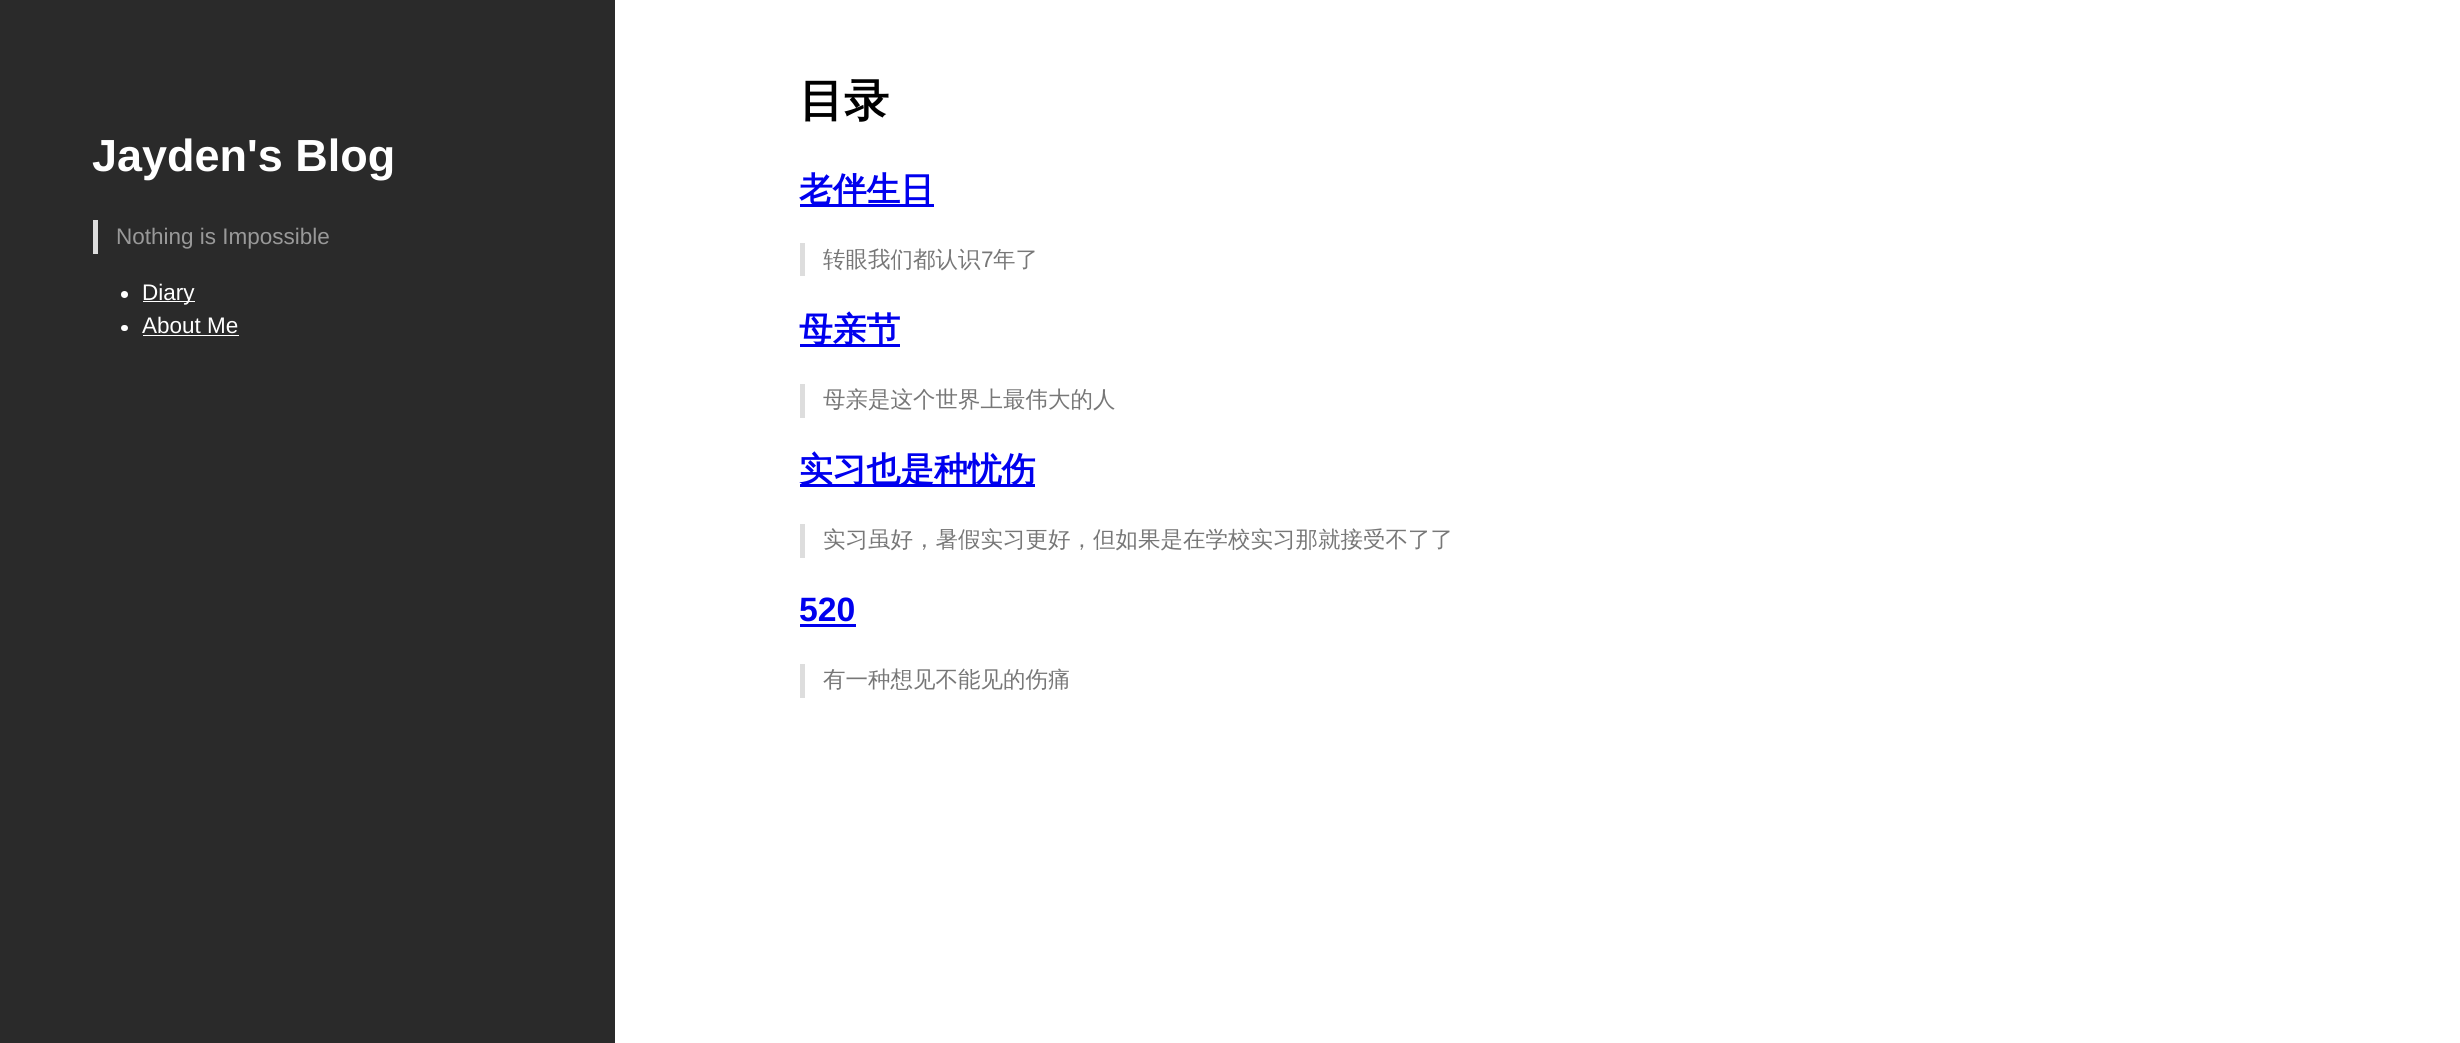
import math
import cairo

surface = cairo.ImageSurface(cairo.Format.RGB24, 2460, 1043)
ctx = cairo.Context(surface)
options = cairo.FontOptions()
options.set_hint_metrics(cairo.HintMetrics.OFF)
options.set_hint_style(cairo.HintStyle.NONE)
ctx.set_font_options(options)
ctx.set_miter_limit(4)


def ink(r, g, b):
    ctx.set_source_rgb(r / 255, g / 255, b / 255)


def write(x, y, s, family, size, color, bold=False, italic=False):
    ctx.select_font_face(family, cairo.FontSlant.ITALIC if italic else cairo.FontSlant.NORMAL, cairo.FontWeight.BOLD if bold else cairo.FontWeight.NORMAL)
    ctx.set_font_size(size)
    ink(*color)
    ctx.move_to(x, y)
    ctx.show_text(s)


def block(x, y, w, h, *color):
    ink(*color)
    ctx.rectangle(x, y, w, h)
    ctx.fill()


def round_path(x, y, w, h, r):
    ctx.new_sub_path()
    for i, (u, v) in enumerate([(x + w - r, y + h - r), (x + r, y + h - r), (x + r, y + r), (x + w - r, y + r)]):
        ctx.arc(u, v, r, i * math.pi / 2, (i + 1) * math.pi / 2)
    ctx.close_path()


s1 = dict(family="Liberation Sans", size=45, color=(255, 255, 255), bold=True)
s2 = dict(family="Liberation Sans", size=22.5, color=(153, 153, 153))
s3 = dict(family="Liberation Sans", size=22.5, color=(255, 255, 255))
s4 = dict(family="WenQuanYi Zen Hei", size=45, color=(0, 0, 0), bold=True)
s5 = dict(family="WenQuanYi Zen Hei", size=33.75, color=(0, 0, 238), bold=True)
s6 = dict(family="WenQuanYi Zen Hei Medium", size=22.5, color=(119, 119, 119))
s7 = dict(family="Liberation Sans", size=22.5, color=(119, 119, 119))
s8 = dict(family="Liberation Sans", size=33.75, color=(0, 0, 238), bold=True)

ink(255, 255, 255)
ctx.paint()
block(0, 0, 615, 1043, 42, 42, 42)
write(92, 171, "Jayden's Blog", **s1)
block(93, 220, 5, 34, 221, 221, 221)
write(116, 244, "Nothing is Impossible", **s2)
ink(255, 255, 255)
ctx.new_path()
ctx.arc(124.5, 294.5, 3.5, 0, 2 * math.pi)
ctx.fill()
block(143, 301, 52, 1, 255, 255, 255)
write(142, 300, "Diary", **s3)
round_path(121, 325, 7, 6, 3)
ctx.fill()
write(142, 333, "About Me", **s3)
block(143, 335, 96, 1, 255, 255, 255)
write(799, 116, "目录", **s4)
block(800, 204, 134, 3, 0, 0, 238)
write(799, 201, "老伴生日", **s5)
block(800, 243, 5, 33, 221, 221, 221)
write(823, 267, "转眼我们都认识", **s6)
write(981, 267, "7", **s7)
write(993, 267, "年了", **s6)
block(800, 344, 100, 3, 0, 0, 238)
write(799, 341, "母亲节", **s5)
block(800, 384, 5, 34, 221, 221, 221)
write(823, 407, "母亲是这个世界上最伟大的人", **s6)
block(800, 484, 235, 3, 0, 0, 238)
write(799, 481, "实习也是种忧伤", **s5)
block(800, 524, 5, 34, 221, 221, 221)
write(823, 547, "实习虽好，暑假实习更好，但如果是在学校实习那就接受不了了", **s6)
write(799, 621, "520", **s8)
block(800, 624, 56, 3, 0, 0, 238)
block(800, 664, 5, 34, 221, 221, 221)
write(823, 687, "有一种想见不能见的伤痛", **s6)
surface.write_to_png("screenshot.png")
